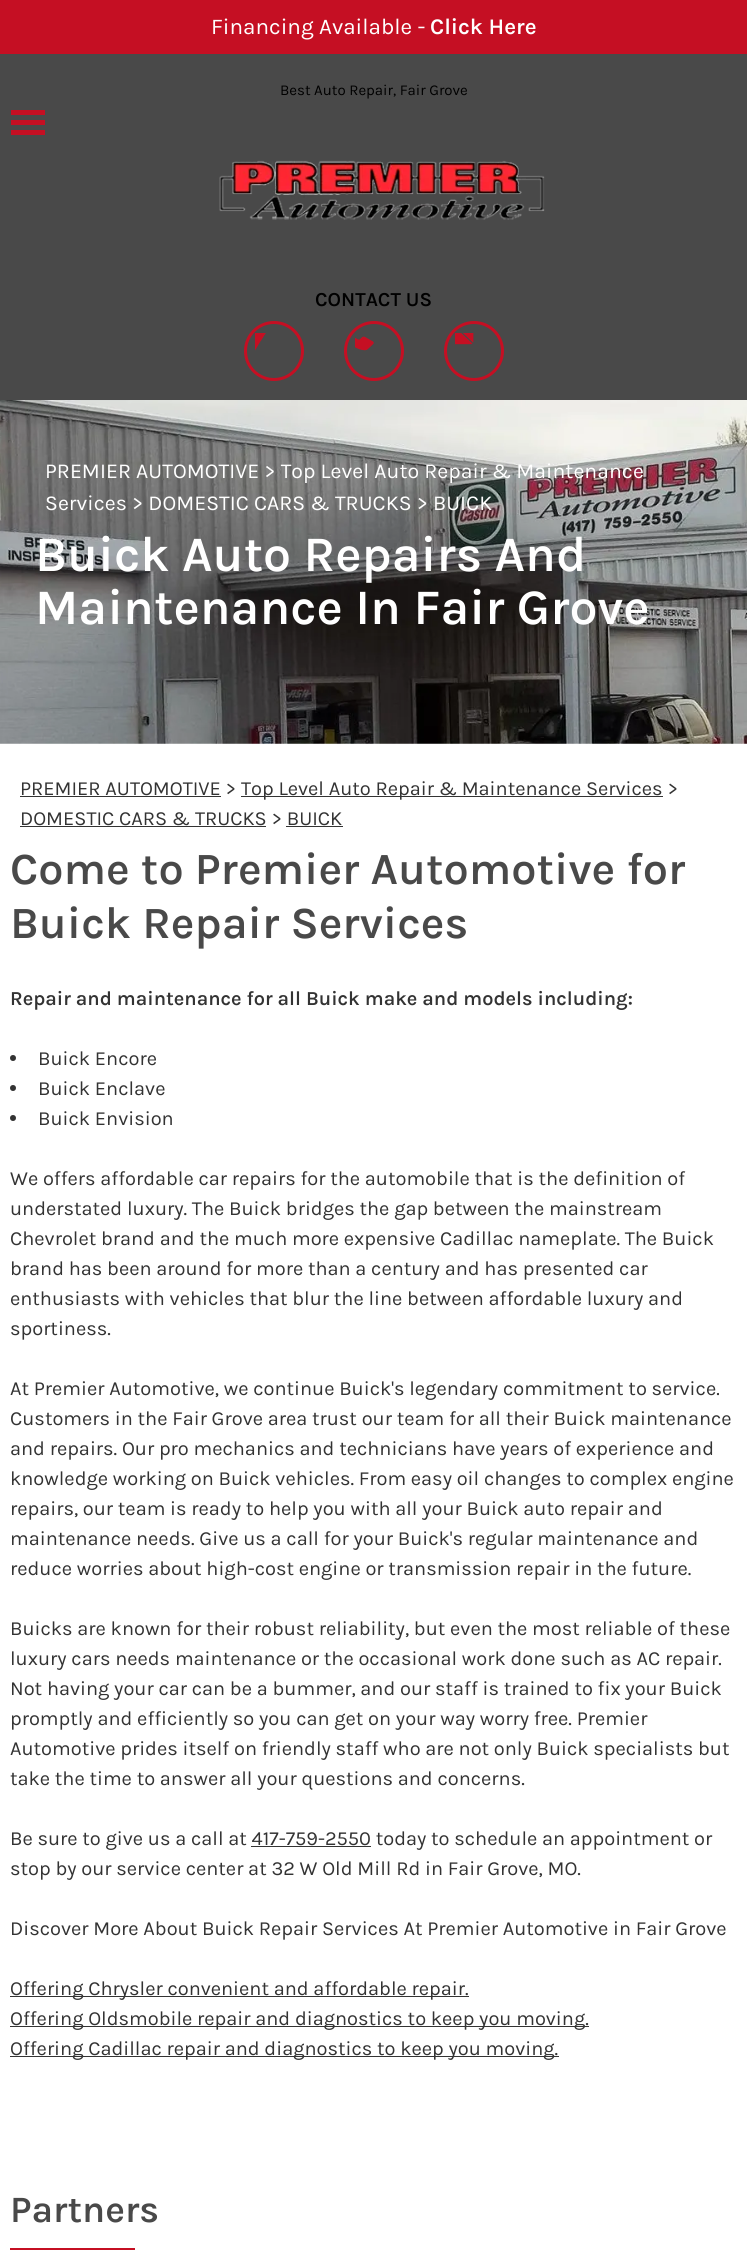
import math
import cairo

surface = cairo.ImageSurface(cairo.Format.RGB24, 747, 2250)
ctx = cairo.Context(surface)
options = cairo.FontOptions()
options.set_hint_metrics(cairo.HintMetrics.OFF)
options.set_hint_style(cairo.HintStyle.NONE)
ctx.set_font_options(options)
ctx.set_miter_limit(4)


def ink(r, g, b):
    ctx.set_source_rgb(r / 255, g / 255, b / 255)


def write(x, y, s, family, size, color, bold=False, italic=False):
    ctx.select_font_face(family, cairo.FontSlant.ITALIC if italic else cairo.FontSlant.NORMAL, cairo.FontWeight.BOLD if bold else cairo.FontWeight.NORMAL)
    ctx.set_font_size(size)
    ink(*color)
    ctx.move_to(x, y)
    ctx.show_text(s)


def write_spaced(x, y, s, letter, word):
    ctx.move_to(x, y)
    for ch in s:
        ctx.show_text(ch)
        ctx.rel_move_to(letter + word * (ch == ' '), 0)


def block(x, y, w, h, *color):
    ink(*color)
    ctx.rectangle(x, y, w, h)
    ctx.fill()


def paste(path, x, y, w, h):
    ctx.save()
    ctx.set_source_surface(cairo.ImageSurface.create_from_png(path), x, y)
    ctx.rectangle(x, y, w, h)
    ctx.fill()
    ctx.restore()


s1 = dict(family="Karla", size=22.5, color=(255, 255, 255))
s2 = dict(family="Karla SemiBold", size=22.5, color=(255, 255, 255))
s3 = dict(family="Karla", size=15, color=(0, 0, 0))
s4 = dict(family="Karla SemiBold", size=20, color=(0, 0, 0))
s5 = dict(family="Karla SemiBold", size=50, color=(255, 255, 255))
s6 = dict(family="Karla", size=20, color=(51, 51, 51))
s7 = dict(family="Karla SemiBold", size=45, color=(73, 73, 73))
s8 = dict(family="Karla SemiBold", size=20, color=(51, 51, 51))
s9 = dict(family="Karla SemiBold", size=37.5, color=(73, 73, 73))

ink(255, 255, 255)
ctx.paint()
block(0, 0, 747, 54, 197, 15, 35)
write(211, 34, "Financing Available -", **s1)
write(430, 34, "Click Here", **s2)
block(0, 54, 747, 346, 73, 73, 73)
write(280, 95, "Best Auto Repair, Fair Grove", **s3)
block(11, 110, 34, 5, 197, 15, 35)
block(11, 120, 34, 5, 197, 15, 35)
block(11, 130, 34, 5, 197, 15, 35)
paste("pic1.png", 219, 160, 326, 60)
write(315, 306, "CONTACT US", **s4)
ctx.new_path()
ctx.arc(274, 351, 28.5, 0, 2 * math.pi)
ink(197, 15, 35)
ctx.set_line_width(3)
ctx.stroke()
paste("pic2.png", 255, 333, 11, 18)
ctx.arc(374, 351, 28.5, 0, 2 * math.pi)
ctx.stroke()
paste("pic3.png", 355, 336, 19, 15)
ctx.arc(474, 351, 28.5, 0, 2 * math.pi)
ctx.stroke()
paste("pic4.png", 455, 333, 19, 12)
paste("pic5.png", 0, 400, 747, 344)
ctx.select_font_face("Karla")
ctx.set_font_size(21.25)
ink(255, 255, 255)
write_spaced(45, 478, "PREMIER AUTOMOTIVE > Top Level Auto Repair & Maintenance", 0.05, 0)
write_spaced(45, 510, "Services > DOMESTIC CARS & TRUCKS > BUICK", 0.05, 0)
write(35, 571, "Buick Auto Repairs And", **s5)
write(35, 624, "Maintenance In Fair Grove", **s5)
write(20, 795, "PREMIER AUTOMOTIVE >", **s6)
block(20, 796, 201, 1, 51, 51, 51)
block(241, 796, 422, 1, 51, 51, 51)
write(241, 795, "Top Level Auto Repair & Maintenance Services >", **s6)
write(20, 825, "DOMESTIC CARS & TRUCKS > BUICK", **s6)
block(20, 826, 246, 1, 51, 51, 51)
block(286, 826, 57, 1, 51, 51, 51)
write(10, 884, "Come to Premier Automotive for", **s7)
write(10, 938, "Buick Repair Services", **s7)
write(10, 1005, "Repair and maintenance for all Buick make and models including:", **s8)
ctx.new_path()
ctx.arc(13, 1058, 3, 0, 2 * math.pi)
ctx.fill()
write(38, 1065, "Buick Encore", **s6)
ctx.new_path()
ctx.arc(13, 1088, 3, 0, 2 * math.pi)
ctx.fill()
write(38, 1095, "Buick Enclave", **s6)
ctx.new_path()
ctx.arc(13, 1118, 3, 0, 2 * math.pi)
ctx.fill()
write(38, 1125, "Buick Envision", **s6)
write(10, 1185, "We offers affordable car repairs for the automobile that is the definition of", **s6)
write(10, 1215, "understated luxury. The Buick bridges the gap between the mainstream", **s6)
write(10, 1245, "Chevrolet brand and the much more expensive Cadillac nameplate. The Buick", **s6)
write(10, 1275, "brand has been around for more than a century and has presented car", **s6)
write(10, 1305, "enthusiasts with vehicles that blur the line between affordable luxury and", **s6)
write(10, 1335, "sportiness.", **s6)
write(10, 1395, "At Premier Automotive, we continue Buick's legendary commitment to service.", **s6)
write(10, 1425, "Customers in the Fair Grove area trust our team for all their Buick maintenance", **s6)
write(10, 1455, "and repairs. Our pro mechanics and technicians have years of experience and", **s6)
write(10, 1485, "knowledge working on Buick vehicles. From easy oil changes to complex engine", **s6)
write(10, 1515, "repairs, our team is ready to help you with all your Buick auto repair and", **s6)
write(10, 1545, "maintenance needs. Give us a call for your Buick's regular maintenance and", **s6)
write(10, 1575, "reduce worries about high-cost engine or transmission repair in the future.", **s6)
write(10, 1635, "Buicks are known for their robust reliability, but even the most reliable of these", **s6)
write(10, 1665, "luxury cars needs maintenance or the occasional work done such as AC repair.", **s6)
write(10, 1695, "Not having your car can be a bummer, and our staff is trained to fix your Buick", **s6)
write(10, 1725, "promptly and efficiently so you can get on your way worry free. Premier", **s6)
write(10, 1755, "Automotive prides itself on friendly staff who are not only Buick specialists but", **s6)
write(10, 1785, "take the time to answer all your questions and concerns.", **s6)
write(10, 1845, "Be sure to give us a call at 417-759-2550 today to schedule an appointment or", **s6)
block(251, 1846, 120, 1, 51, 51, 51)
write(10, 1875, "stop by our service center at 32 W Old Mill Rd in Fair Grove, MO.", **s6)
write(10, 1935, "Discover More About Buick Repair Services At Premier Automotive in Fair Grove", **s6)
block(10, 1996, 459, 1, 51, 51, 51)
write(10, 1995, "Offering Chrysler convenient and affordable repair.", **s6)
block(10, 2026, 579, 1, 51, 51, 51)
write(10, 2025, "Offering Oldsmobile repair and diagnostics to keep you moving.", **s6)
block(10, 2056, 549, 1, 51, 51, 51)
write(10, 2055, "Offering Cadillac repair and diagnostics to keep you moving.", **s6)
write(10, 2222, "Partners", **s9)
block(10, 2248, 125, 2, 197, 15, 35)
surface.write_to_png("screenshot.png")
